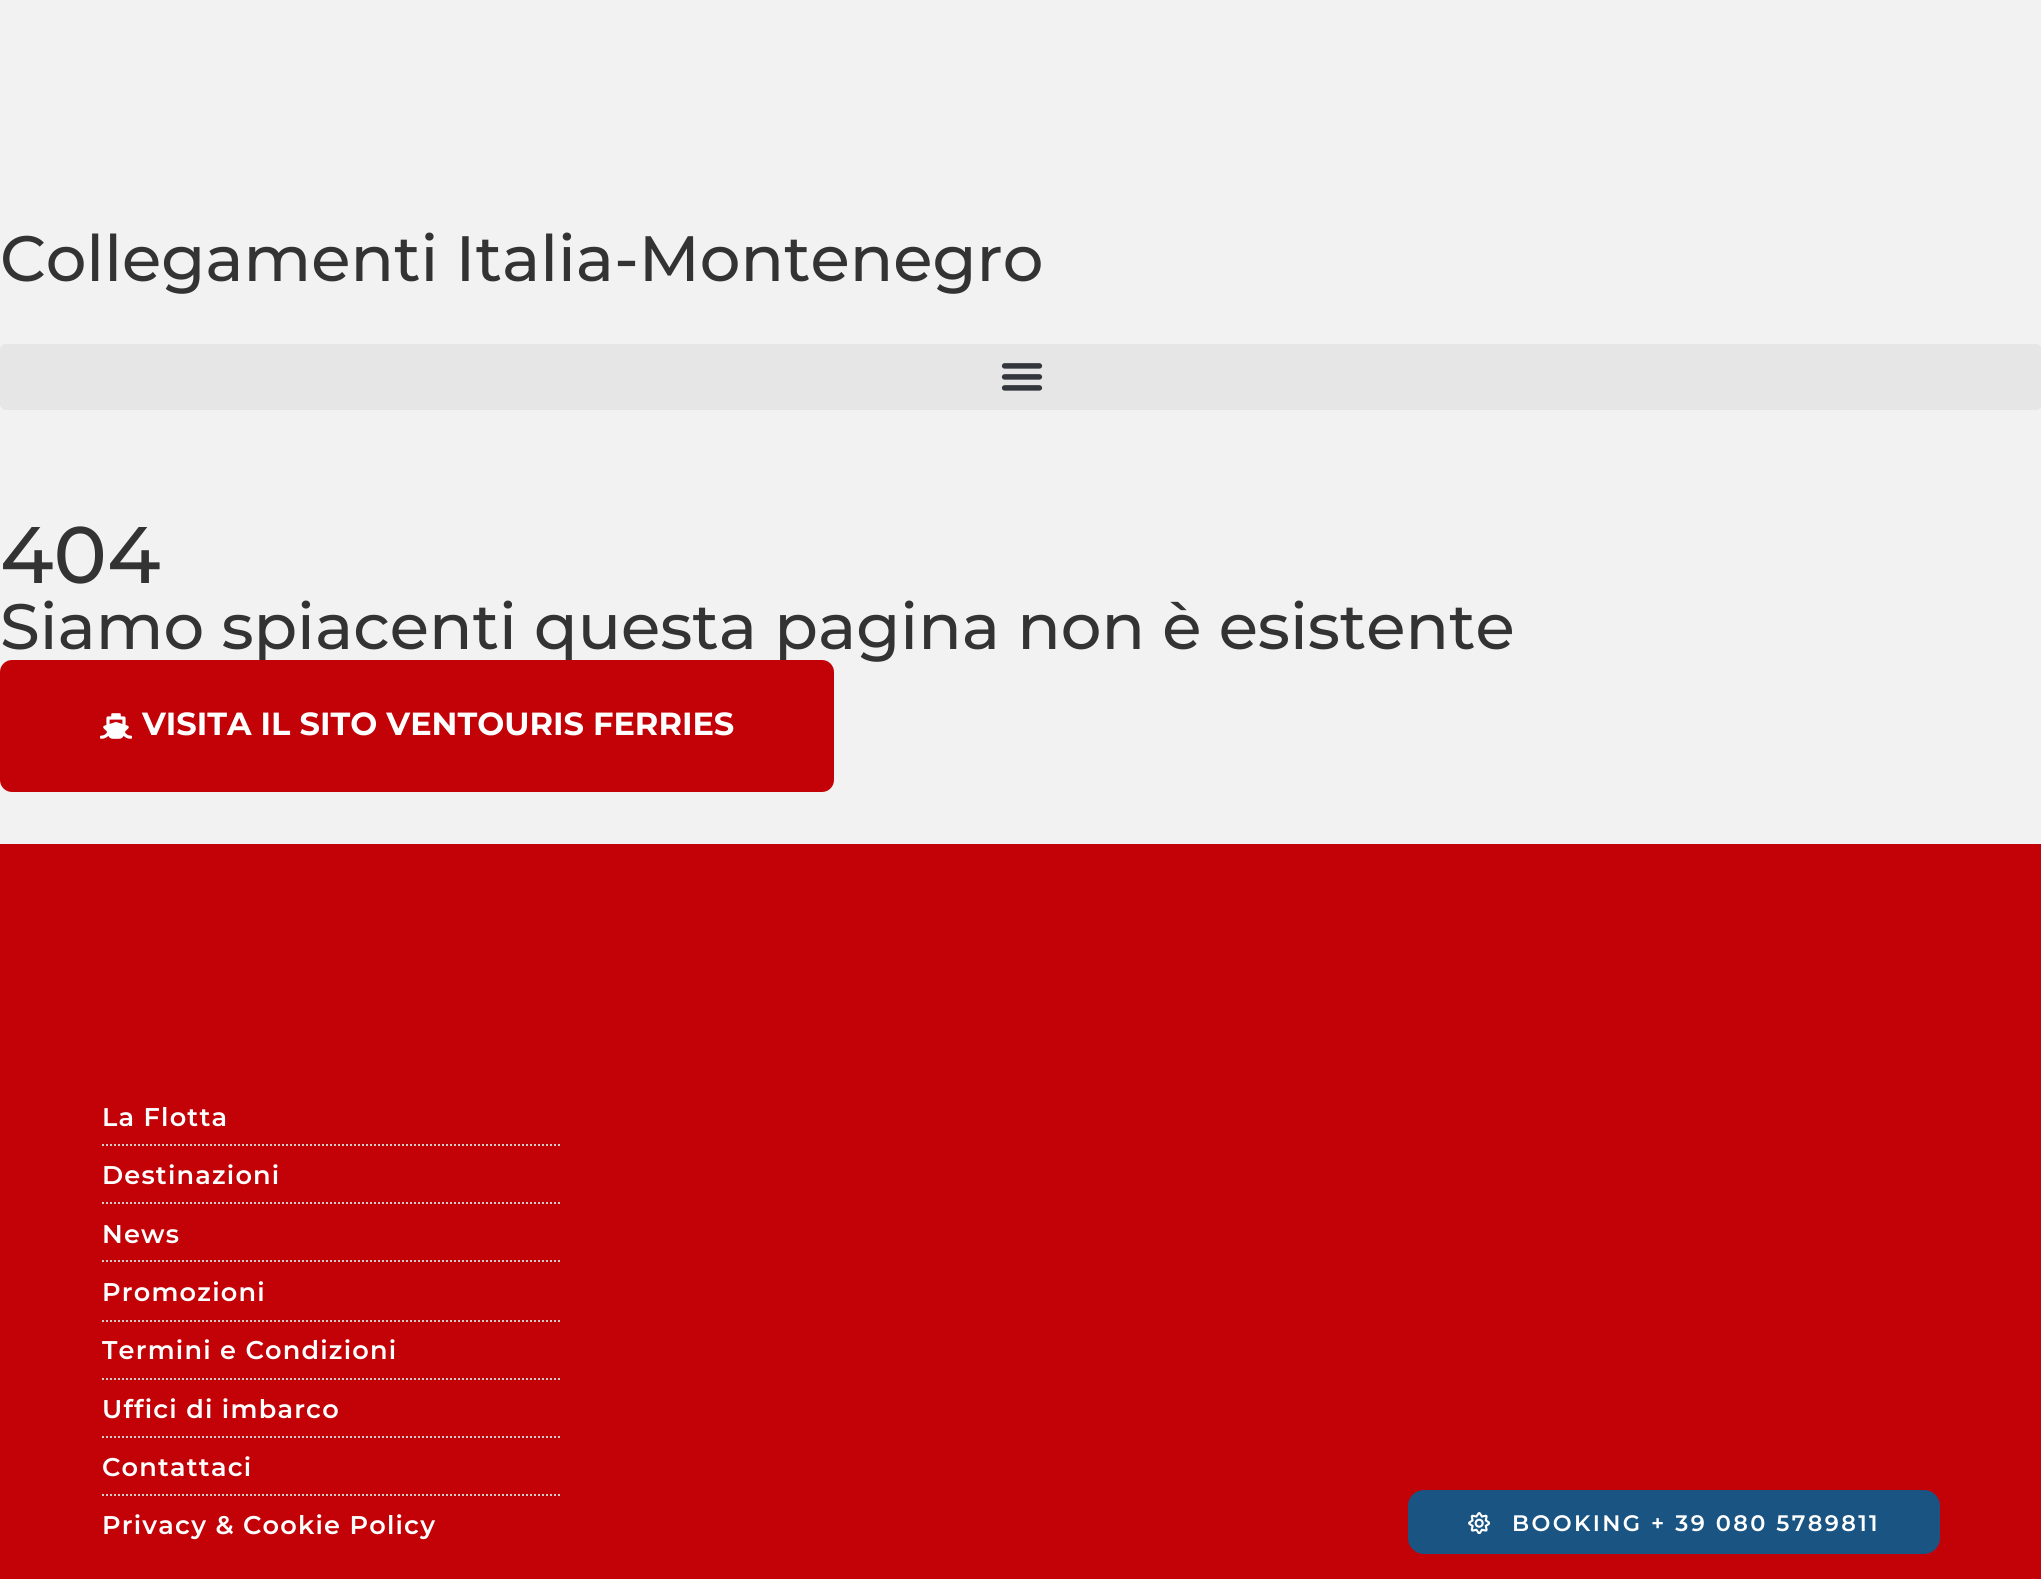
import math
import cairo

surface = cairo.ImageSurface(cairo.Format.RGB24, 2041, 1579)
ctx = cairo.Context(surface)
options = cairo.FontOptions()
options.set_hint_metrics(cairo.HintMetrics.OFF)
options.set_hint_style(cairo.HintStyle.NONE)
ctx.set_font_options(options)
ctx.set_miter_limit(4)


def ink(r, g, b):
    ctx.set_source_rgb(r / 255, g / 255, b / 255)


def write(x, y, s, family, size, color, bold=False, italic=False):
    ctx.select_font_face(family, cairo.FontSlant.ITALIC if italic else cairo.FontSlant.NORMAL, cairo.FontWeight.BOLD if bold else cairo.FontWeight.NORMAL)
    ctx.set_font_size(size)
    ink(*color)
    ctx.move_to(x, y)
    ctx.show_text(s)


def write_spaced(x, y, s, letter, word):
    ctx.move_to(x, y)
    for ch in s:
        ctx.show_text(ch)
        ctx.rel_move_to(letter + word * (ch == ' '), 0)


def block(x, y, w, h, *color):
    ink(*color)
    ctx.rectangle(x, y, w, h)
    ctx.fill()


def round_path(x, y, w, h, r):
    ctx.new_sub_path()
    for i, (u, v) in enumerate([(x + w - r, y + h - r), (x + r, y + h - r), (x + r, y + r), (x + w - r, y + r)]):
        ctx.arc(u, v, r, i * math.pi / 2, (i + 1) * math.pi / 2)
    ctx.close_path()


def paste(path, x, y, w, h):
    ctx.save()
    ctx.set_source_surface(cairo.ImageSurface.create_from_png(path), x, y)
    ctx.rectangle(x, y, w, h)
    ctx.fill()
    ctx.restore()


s1 = dict(family="Montserrat Medium", size=64, color=(51, 51, 51))
s2 = dict(family="Montserrat Medium", size=80, color=(51, 51, 51))
s3 = dict(family="Montserrat", size=32, color=(255, 255, 255), bold=True)

ink(242, 242, 242)
ctx.paint()
write(0, 281, "Collegamenti Italia-Montenegro", **s1)
ink(230, 230, 230)
round_path(0, 344, 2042, 66, 6)
ctx.fill()
paste("pic1.png", 1001, 363, 42, 28)
write(0, 583, "404", **s2)
write(0, 649, "Siamo spiacenti questa pagina non è esistente", **s1)
ink(195, 2, 7)
round_path(0, 660, 834, 132, 12)
ctx.fill()
paste("pic2.png", 100, 713, 32, 26)
write(142, 735, "VISITA IL SITO VENTOURIS FERRIES", **s3)
block(0, 844, 2041, 735, 195, 2, 7)
ctx.select_font_face("Montserrat SemiBold")
ctx.set_font_size(25.6)
ink(255, 255, 255)
write_spaced(102, 1126, "La Flotta", 1.2, 0)
ctx.new_path()
ctx.move_to(102, 1145)
ctx.line_to(562, 1145)
ink(204, 204, 204)
ctx.set_dash([2, 2])
ctx.stroke()
ink(255, 255, 255)
write_spaced(102, 1184, "Destinazioni", 1.2, 0)
ctx.new_path()
ctx.move_to(102, 1203)
ctx.line_to(562, 1203)
ink(204, 204, 204)
ctx.stroke()
ink(255, 255, 255)
write_spaced(102, 1243, "News", 1.2, 0)
ctx.new_path()
ctx.move_to(102, 1261)
ctx.line_to(562, 1261)
ink(204, 204, 204)
ctx.stroke()
ink(255, 255, 255)
write_spaced(102, 1301, "Promozioni", 1.2, 0)
ctx.new_path()
ctx.move_to(102, 1321)
ctx.line_to(562, 1321)
ink(204, 204, 204)
ctx.stroke()
ink(255, 255, 255)
write_spaced(102, 1359, "Termini e Condizioni", 1.2, 0)
ctx.new_path()
ctx.move_to(102, 1379)
ctx.line_to(562, 1379)
ink(204, 204, 204)
ctx.stroke()
ink(255, 255, 255)
write_spaced(102, 1418, "Uffici di imbarco", 1.2, 0)
ctx.new_path()
ctx.move_to(102, 1437)
ctx.line_to(562, 1437)
ink(204, 204, 204)
ctx.stroke()
ink(255, 255, 255)
write_spaced(102, 1476, "Contattaci", 1.2, 0)
ctx.new_path()
ctx.move_to(102, 1495)
ctx.line_to(562, 1495)
ink(204, 204, 204)
ctx.stroke()
ink(255, 255, 255)
write_spaced(102, 1534, "Privacy & Cookie Policy", 1.2, 0)
ink(25, 84, 131)
round_path(1408, 1490, 532, 64, 16)
ctx.fill()
paste("pic3.png", 1468, 1512, 22, 22)
ctx.set_font_size(22.4)
ink(255, 255, 255)
write_spaced(1512, 1531, "BOOKING + 39 080 5789811", 2.4, 0)
surface.write_to_png("screenshot.png")
